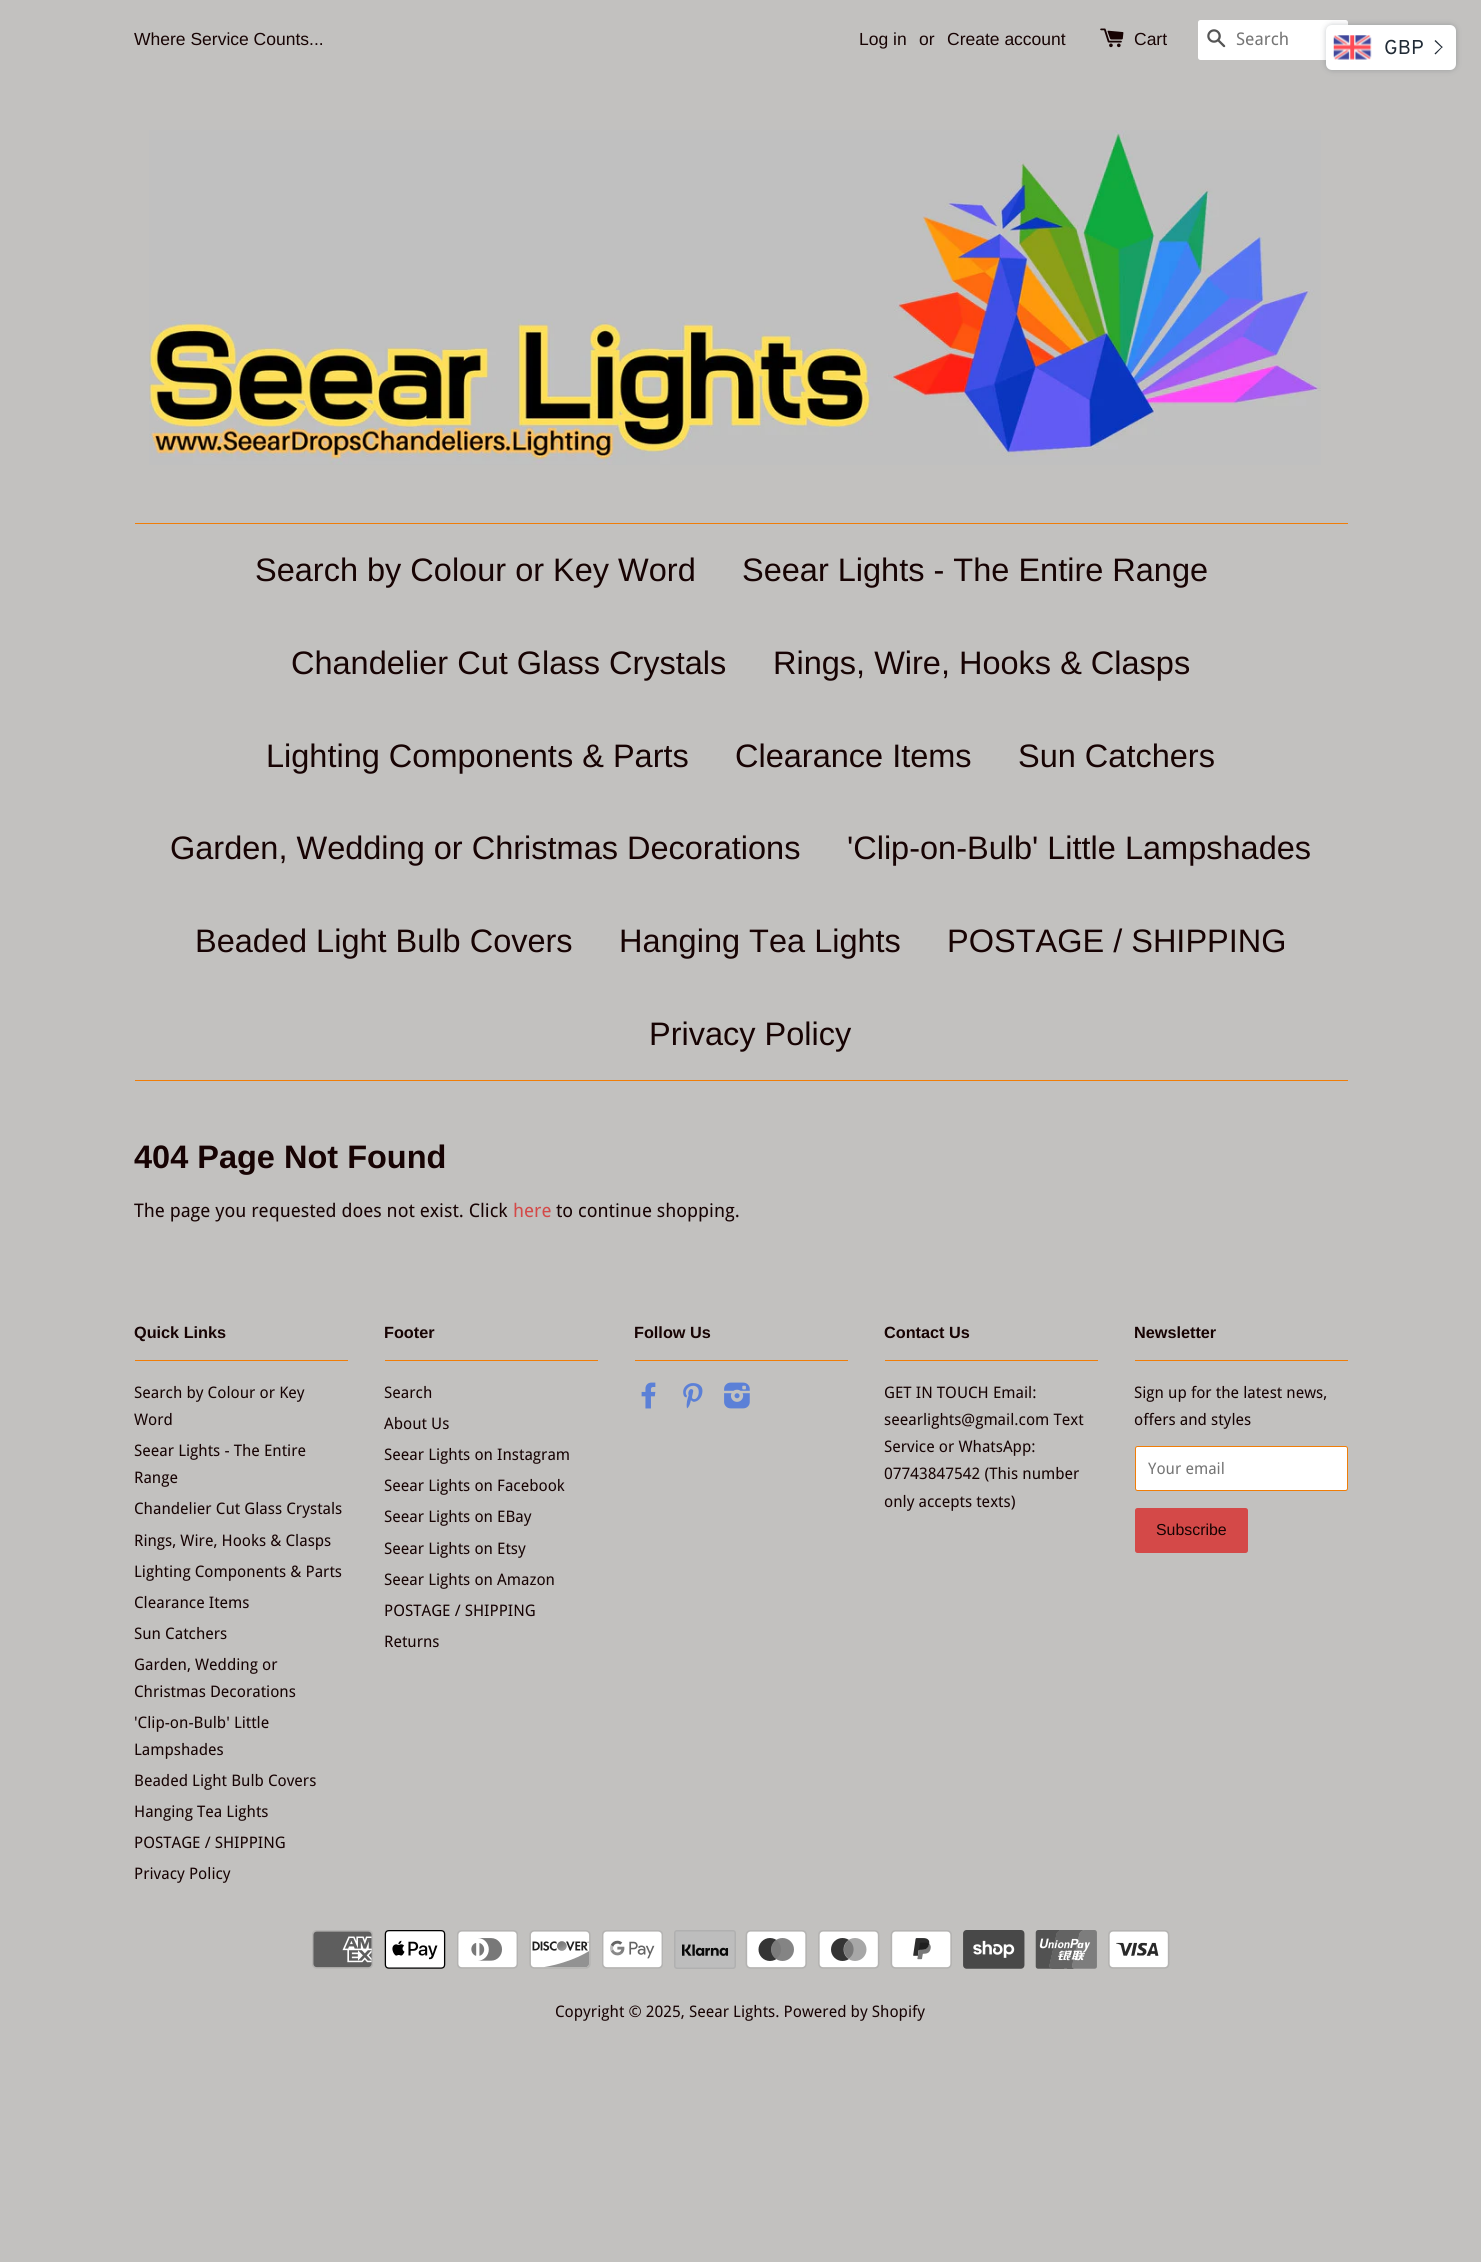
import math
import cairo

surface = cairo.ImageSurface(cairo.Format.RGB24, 1481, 2262)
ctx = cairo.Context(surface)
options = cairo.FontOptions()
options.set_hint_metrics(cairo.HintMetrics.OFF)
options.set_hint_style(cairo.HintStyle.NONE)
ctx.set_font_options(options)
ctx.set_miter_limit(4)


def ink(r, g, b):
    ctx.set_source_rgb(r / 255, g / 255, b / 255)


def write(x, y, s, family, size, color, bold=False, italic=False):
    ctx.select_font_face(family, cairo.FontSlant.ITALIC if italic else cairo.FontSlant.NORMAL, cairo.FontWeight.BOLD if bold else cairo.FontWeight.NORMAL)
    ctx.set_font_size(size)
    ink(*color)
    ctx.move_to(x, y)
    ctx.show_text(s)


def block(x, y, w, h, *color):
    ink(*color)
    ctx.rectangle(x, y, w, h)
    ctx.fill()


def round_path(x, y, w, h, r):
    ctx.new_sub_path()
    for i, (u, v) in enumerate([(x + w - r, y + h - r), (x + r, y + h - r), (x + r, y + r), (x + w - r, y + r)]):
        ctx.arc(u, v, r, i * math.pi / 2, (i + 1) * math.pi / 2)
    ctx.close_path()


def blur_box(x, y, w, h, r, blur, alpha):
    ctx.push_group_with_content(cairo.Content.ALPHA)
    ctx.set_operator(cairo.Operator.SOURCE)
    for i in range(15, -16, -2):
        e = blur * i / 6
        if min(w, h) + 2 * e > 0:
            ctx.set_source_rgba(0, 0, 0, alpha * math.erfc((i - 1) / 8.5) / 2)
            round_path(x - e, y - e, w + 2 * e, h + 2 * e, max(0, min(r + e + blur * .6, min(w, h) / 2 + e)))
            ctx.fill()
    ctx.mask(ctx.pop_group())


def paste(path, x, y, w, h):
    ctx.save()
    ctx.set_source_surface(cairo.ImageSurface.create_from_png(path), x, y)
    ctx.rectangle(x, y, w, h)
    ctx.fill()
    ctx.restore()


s1 = dict(family="Liberation Sans", size=17.5, color=(23, 3, 3))
s2 = dict(family="Droid Sans", size=17.5, color=(117, 117, 117))
s3 = dict(family="Overpass", size=20, color=(33, 43, 54))
s4 = dict(family="Liberation Sans", size=32.5, color=(23, 3, 3))
s5 = dict(family="Liberation Sans", size=32.5, color=(23, 3, 3), bold=True)
s6 = dict(family="Droid Sans", size=18.75, color=(23, 3, 3))
s7 = dict(family="Droid Sans", size=18.75, color=(212, 73, 72))
s8 = dict(family="Liberation Sans", size=16.25, color=(23, 3, 3), bold=True)
s9 = dict(family="Droid Sans", size=15.9, color=(23, 3, 3))
s10 = dict(family="Droid Sans", size=15.9, color=(117, 117, 117))
s11 = dict(family="Liberation Sans", size=15.9, color=(23, 3, 3))

ink(194, 193, 191)
ctx.paint()
write(134, 45, "Where Service Counts...", **s1)
write(859, 45, "Log in", **s1)
write(919, 45, "or", **s1)
write(947, 45, "Create account", **s1)
paste("pic1.png", 1100, 28, 24, 20)
write(1134, 45, "Cart", **s1)
ink(255, 255, 255)
round_path(1198, 20, 150, 40, 2.5)
ctx.fill()
paste("pic2.png", 1207, 29, 19, 19)
write(1236, 45, "Search", **s2)
ink(33, 43, 54)
blur_box(1326, 25, 130, 45, 6, 3, 0.25)
ink(255, 255, 255)
round_path(1326, 25, 130, 45, 6)
ctx.fill()
paste("pic3.png", 1333, 35, 39, 25)
write(1384, 54, "GBP", **s3)
ctx.new_path()
ctx.move_to(1434.5, 41)
ctx.line_to(1435.5, 40)
ctx.line_to(1442.5, 47)
ctx.line_to(1442, 48)
ctx.close_path()
ctx.fill()
ctx.new_path()
ctx.move_to(1434.5, 53.5)
ctx.line_to(1442, 46.5)
ctx.line_to(1442.5, 47)
ctx.line_to(1435.5, 54.5)
ctx.close_path()
ctx.fill()
paste("pic4.png", 149, 130, 1172, 335)
block(135, 523, 1213, 1, 240, 125, 7)
block(135, 1080, 1213, 1, 240, 125, 7)
write(255, 581, "Search by Colour or Key Word", **s4)
write(742, 581, "Seear Lights - The Entire Range", **s4)
write(291, 674, "Chandelier Cut Glass Crystals", **s4)
write(773, 674, "Rings, Wire, Hooks & Clasps", **s4)
write(266, 767, "Lighting Components & Parts", **s4)
write(735, 767, "Clearance Items", **s4)
write(1018, 767, "Sun Catchers", **s4)
write(170, 859, "Garden, Wedding or Christmas Decorations", **s4)
write(847, 859, "'Clip-on-Bulb' Little Lampshades", **s4)
write(195, 952, "Beaded Light Bulb Covers", **s4)
write(619, 952, "Hanging Tea Lights", **s4)
write(947, 952, "POSTAGE / SHIPPING", **s4)
write(649, 1045, "Privacy Policy", **s4)
write(134, 1168, "404 Page Not Found", **s5)
write(134, 1217, "The page you requested does not exist. Click", **s6)
write(513, 1217, "here", **s7)
write(556, 1217, "to continue shopping.", **s6)
block(135, 1360, 213, 1, 240, 125, 7)
write(134, 1338, "Quick Links", **s8)
write(134, 1398, "Search by Colour or Key", **s9)
write(134, 1425, "Word", **s9)
write(134, 1456, "Seear Lights - The Entire", **s9)
write(134, 1483, "Range", **s9)
write(134, 1514, "Chandelier Cut Glass Crystals", **s9)
write(134, 1546, "Rings, Wire, Hooks & Clasps", **s9)
write(134, 1577, "Lighting Components & Parts", **s9)
write(134, 1608, "Clearance Items", **s9)
write(134, 1639, "Sun Catchers", **s9)
write(134, 1670, "Garden, Wedding or", **s9)
write(134, 1697, "Christmas Decorations", **s9)
write(134, 1728, "'Clip-on-Bulb' Little", **s9)
write(134, 1755, "Lampshades", **s9)
write(134, 1786, "Beaded Light Bulb Covers", **s9)
write(134, 1817, "Hanging Tea Lights", **s9)
write(134, 1848, "POSTAGE / SHIPPING", **s9)
write(134, 1879, "Privacy Policy", **s9)
block(385, 1360, 213, 1, 240, 125, 7)
write(384, 1338, "Footer", **s8)
write(384, 1398, "Search", **s9)
write(384, 1429, "About Us", **s9)
write(384, 1460, "Seear Lights on Instagram", **s9)
write(384, 1491, "Seear Lights on Facebook", **s9)
write(384, 1522, "Seear Lights on EBay", **s9)
write(384, 1554, "Seear Lights on Etsy", **s9)
write(384, 1585, "Seear Lights on Amazon", **s9)
write(384, 1616, "POSTAGE / SHIPPING", **s9)
write(384, 1647, "Returns", **s9)
block(635, 1360, 213, 1, 240, 125, 7)
write(634, 1338, "Follow Us", **s8)
paste("pic5.png", 641, 1382, 15, 27)
paste("pic6.png", 683, 1383, 20, 26)
paste("pic7.png", 724, 1382, 26, 27)
block(885, 1360, 213, 1, 240, 125, 7)
write(884, 1338, "Contact Us", **s8)
write(884, 1398, "GET IN TOUCH Email:", **s9)
write(884, 1425, "seearlights@gmail.com Text", **s9)
write(884, 1452, "Service or WhatsApp:", **s9)
write(884, 1479, "07743847542 (This number", **s9)
write(884, 1507, "only accepts texts)", **s9)
block(1135, 1360, 213, 1, 240, 125, 7)
write(1134, 1338, "Newsletter", **s8)
write(1134, 1398, "Sign up for the latest news,", **s9)
write(1134, 1425, "offers and styles", **s9)
ink(255, 255, 255)
round_path(1135.5, 1446.5, 212, 44, 2)
ctx.fill_preserve()
ink(240, 125, 7)
ctx.set_line_width(1)
ctx.stroke()
write(1148, 1474, "Your email", **s10)
ink(212, 73, 72)
round_path(1135, 1508, 113, 45, 2.5)
ctx.fill()
write(1156, 1535, "Subscribe", **s11)
paste("pic8.png", 312, 1930, 61, 39)
paste("pic9.png", 384, 1930, 62, 39)
paste("pic10.png", 457, 1930, 61, 39)
paste("pic11.png", 529, 1930, 62, 39)
paste("pic12.png", 602, 1930, 61, 39)
paste("pic13.png", 674, 1930, 62, 39)
paste("pic14.png", 745, 1930, 62, 39)
paste("pic15.png", 818, 1930, 62, 39)
paste("pic16.png", 890, 1930, 62, 39)
paste("pic17.png", 963, 1930, 62, 39)
paste("pic18.png", 1035, 1930, 62, 39)
paste("pic19.png", 1108, 1930, 62, 39)
write(555, 2017, "Copyright © 2025, Seear Lights. Powered by Shopify", **s9)
surface.write_to_png("screenshot.png")
